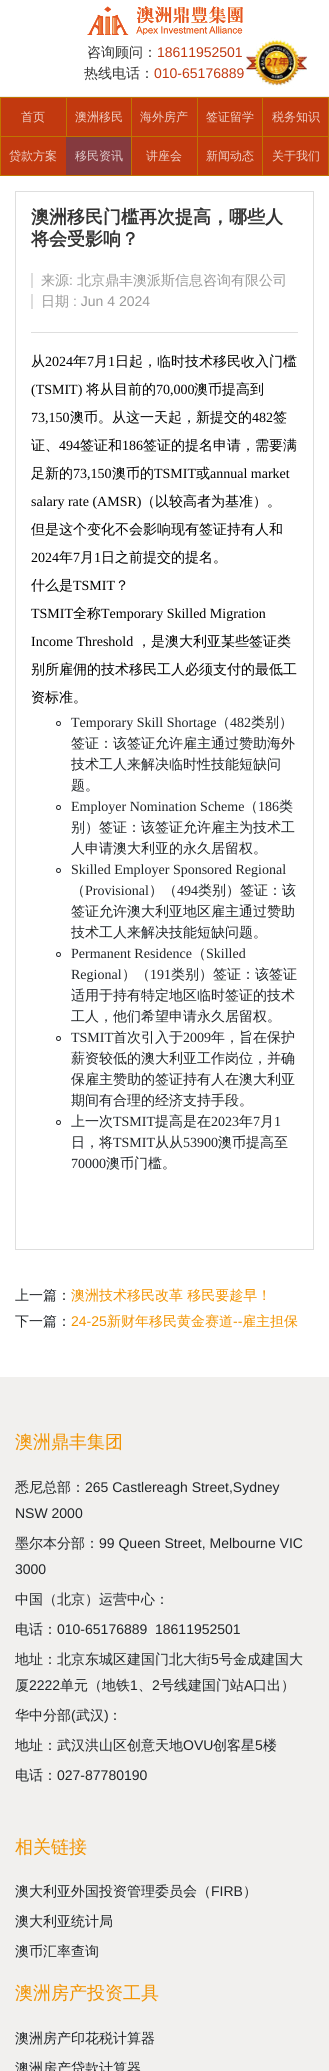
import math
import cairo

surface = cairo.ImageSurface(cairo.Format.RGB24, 329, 2071)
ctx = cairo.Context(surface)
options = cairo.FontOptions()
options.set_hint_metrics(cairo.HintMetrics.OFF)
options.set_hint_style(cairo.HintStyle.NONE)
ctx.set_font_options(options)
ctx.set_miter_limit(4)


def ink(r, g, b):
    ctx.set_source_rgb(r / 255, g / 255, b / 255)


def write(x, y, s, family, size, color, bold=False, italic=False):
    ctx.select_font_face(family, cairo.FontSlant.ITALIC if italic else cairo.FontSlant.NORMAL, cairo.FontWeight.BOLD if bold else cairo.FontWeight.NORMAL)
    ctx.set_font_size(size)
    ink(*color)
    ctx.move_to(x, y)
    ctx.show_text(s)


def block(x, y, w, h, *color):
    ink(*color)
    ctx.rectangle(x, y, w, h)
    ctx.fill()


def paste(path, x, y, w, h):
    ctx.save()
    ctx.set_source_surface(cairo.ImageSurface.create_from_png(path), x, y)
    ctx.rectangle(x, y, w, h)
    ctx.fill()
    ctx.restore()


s1 = dict(family="WenQuanYi Zen Hei Medium", size=14, color=(51, 51, 51))
s2 = dict(family="Liberation Sans", size=14, color=(194, 57, 15))
s3 = dict(family="WenQuanYi Zen Hei Medium", size=12, color=(240, 206, 195))
s4 = dict(family="WenQuanYi Zen Hei Medium", size=12, color=(225, 206, 207))
s5 = dict(family="WenQuanYi Zen Hei", size=18, color=(51, 51, 51), bold=True)
s6 = dict(family="WenQuanYi Zen Hei Medium", size=14, color=(153, 153, 153))
s7 = dict(family="Liberation Sans", size=14, color=(153, 153, 153))
s8 = dict(family="WenQuanYi Zen Hei Medium", size=14, color=(0, 0, 0))
s9 = dict(family="Liberation Serif", size=14, color=(0, 0, 0))
s10 = dict(family="Liberation Serif", size=14, color=(33, 37, 41))
s11 = dict(family="WenQuanYi Zen Hei Medium", size=14, color=(33, 37, 41))
s12 = dict(family="WenQuanYi Zen Hei Medium", size=14, color=(242, 147, 0))
s13 = dict(family="Liberation Sans", size=14, color=(242, 147, 0))
s14 = dict(family="WenQuanYi Zen Hei Medium", size=18, color=(242, 147, 0))
s15 = dict(family="Liberation Sans", size=14, color=(33, 37, 41))

ink(255, 255, 255)
ctx.paint()
block(0, 96, 329, 1, 238, 238, 238)
paste("pic1.png", 87, 6, 156, 29)
write(87, 57, "咨询顾问：", **s1)
write(157, 57, "18611952501", **s2)
write(154, 78, "010-65176889", **s2)
paste("pic2.png", 243, 38, 65, 49)
write(84, 78, "热线电话：", **s1)
block(1, 98, 327, 77, 194, 57, 15)
block(0, 97, 329, 1, 191, 116, 0)
block(328, 97, 1, 79, 191, 116, 0)
block(0, 136, 66, 1, 191, 116, 0)
block(0, 98, 1, 39, 191, 116, 0)
write(21, 121, "首页", **s3)
block(66, 136, 262, 1, 191, 116, 0)
block(66, 98, 1, 39, 191, 116, 0)
write(75, 121, "澳洲移民", **s3)
block(131, 98, 1, 39, 191, 116, 0)
write(140, 121, "海外房产", **s3)
write(206, 121, "签证留学", **s3)
block(131, 175, 197, 1, 191, 116, 0)
block(262, 98, 1, 78, 191, 116, 0)
write(272, 121, "税务知识", **s3)
block(0, 175, 131, 1, 191, 116, 0)
block(0, 137, 1, 39, 191, 116, 0)
write(9, 160, "贷款方案", **s3)
block(66, 137, 65, 38, 133, 58, 63)
write(75, 160, "移民资讯", **s4)
block(131, 137, 1, 39, 191, 116, 0)
write(146, 160, "讲座会", **s3)
block(197, 98, 1, 78, 191, 116, 0)
write(206, 160, "新闻动态", **s3)
write(272, 160, "关于我们", **s3)
ctx.rectangle(15.5, 191.5, 298, 1058)
ink(222, 222, 222)
ctx.set_line_width(1)
ctx.stroke()
block(31, 332, 267, 1, 222, 222, 222)
write(31, 223, "澳洲移民门槛再次提高，哪些人", **s5)
write(31, 245, "将会受影响？", **s5)
block(31, 273, 2, 15, 222, 222, 222)
write(41, 285, "来源", **s6)
write(69, 285, ":", **s7)
write(77, 285, "北京鼎丰澳派斯信息咨询有限公司", **s6)
block(31, 294, 2, 15, 222, 222, 222)
write(41, 306, "日期", **s6)
write(73, 306, ": Jun 4 2024", **s7)
write(31, 366, "从", **s8)
write(45, 366, "2024", **s9)
write(73, 366, "年", **s8)
write(87, 366, "7", **s9)
write(94, 366, "月", **s8)
write(108, 366, "1", **s9)
write(115, 366, "日起，临时技术移民收入门槛", **s8)
write(31, 394, "(TSMIT)", **s9)
write(86, 394, "将从目前的", **s8)
write(156, 394, "70,000", **s9)
write(194, 394, "澳币提高到", **s8)
write(31, 422, "73,150", **s9)
write(70, 422, "澳币。从这一天起，新提交的", **s8)
write(252, 422, "482", **s9)
write(273, 422, "签", **s8)
write(31, 450, "证、", **s8)
write(59, 450, "494", **s9)
write(80, 450, "签证和", **s8)
write(122, 450, "186", **s9)
write(143, 450, "签证的提名申请，需要满", **s8)
write(31, 478, "足新的", **s8)
write(73, 478, "73,150", **s9)
write(112, 478, "澳币的", **s8)
write(154, 478, "TSMIT", **s9)
write(196, 478, "或", **s8)
write(210, 478, "annual market", **s9)
write(31, 506, "salary rate (AMSR)", **s9)
write(141, 506, "（以较高者为基准）。", **s8)
write(31, 534, "但是这个变化不会影响现有签证持有人和", **s8)
write(31, 562, "2024", **s9)
write(59, 562, "年", **s8)
write(73, 562, "7", **s9)
write(80, 562, "月", **s8)
write(94, 562, "1", **s9)
write(101, 562, "日之前提交的提名。", **s8)
write(31, 590, "什么是", **s8)
write(73, 590, "TSMIT", **s9)
write(115, 590, "？", **s8)
write(31, 618, "TSMIT", **s9)
write(73, 618, "全称", **s8)
write(101, 618, "Temporary Skilled Migration", **s9)
write(31, 646, "Income Threshold", **s9)
write(137, 646, "，是澳大利亚某些签证类", **s8)
write(31, 674, "别所雇佣的技术移民工人必须支付的最低工", **s8)
write(31, 702, "资标准。", **s8)
ctx.new_path()
ctx.arc(58.5, 723.5, 2, 0, 2 * math.pi)
ink(33, 37, 41)
ctx.stroke()
write(71, 727, "Temporary Skill Shortage", **s10)
write(216, 727, "（", **s11)
write(230, 727, "482", **s10)
write(251, 727, "类别）", **s11)
write(71, 748, "签证：该签证允许雇主通过赞助海外", **s11)
write(71, 769, "技术工人来解决临时性技能短缺问", **s11)
write(71, 790, "题。", **s11)
ctx.new_path()
ctx.arc(58.5, 807.5, 2, 0, 2 * math.pi)
ctx.stroke()
write(71, 811, "Employer Nomination Scheme", **s10)
write(244, 811, "（", **s11)
write(258, 811, "186", **s10)
write(279, 811, "类", **s11)
write(71, 832, "别）签证：该签证允许雇主为技术工", **s11)
write(71, 853, "人申请澳大利亚的永久居留权。", **s11)
ctx.new_path()
ctx.arc(58.5, 870.5, 2, 0, 2 * math.pi)
ctx.stroke()
write(71, 874, "Skilled Employer Sponsored Regional", **s10)
write(71, 895, "（", **s11)
write(85, 895, "Provisional", **s10)
write(149, 895, "）（", **s11)
write(177, 895, "494", **s10)
write(198, 895, "类别）签证：该", **s11)
write(71, 916, "签证允许澳大利亚地区雇主通过赞助", **s11)
write(71, 937, "技术工人来解决技能短缺问题。", **s11)
ctx.new_path()
ctx.arc(58.5, 954.5, 2, 0, 2 * math.pi)
ctx.stroke()
write(71, 958, "Permanent Residence", **s10)
write(192, 958, "（", **s11)
write(206, 958, "Skilled", **s10)
write(71, 979, "Regional", **s10)
write(122, 979, "）（", **s11)
write(150, 979, "191", **s10)
write(171, 979, "类别）签证：该签证", **s11)
write(71, 1000, "适用于持有特定地区临时签证的技术", **s11)
write(71, 1021, "工人，他们希望申请永久居留权。", **s11)
ctx.new_path()
ctx.arc(58.5, 1038.5, 2, 0, 2 * math.pi)
ctx.stroke()
write(71, 1042, "TSMIT", **s10)
write(113, 1042, "首次引入于", **s11)
write(183, 1042, "2009", **s10)
write(211, 1042, "年，旨在保护", **s11)
write(71, 1063, "薪资较低的澳大利亚工作岗位，并确", **s11)
write(71, 1084, "保雇主赞助的签证持有人在澳大利亚", **s11)
write(71, 1105, "期间有合理的经济支持手段。", **s11)
ctx.new_path()
ctx.arc(58.5, 1122.5, 2, 0, 2 * math.pi)
ctx.stroke()
write(71, 1126, "上一次", **s11)
write(113, 1126, "TSMIT", **s10)
write(155, 1126, "提高是在", **s11)
write(211, 1126, "2023", **s10)
write(239, 1126, "年", **s11)
write(253, 1126, "7", **s10)
write(260, 1126, "月", **s11)
write(274, 1126, "1", **s10)
write(71, 1147, "日，将", **s11)
write(113, 1147, "TSMIT", **s10)
write(155, 1147, "从从", **s11)
write(183, 1147, "53900", **s10)
write(218, 1147, "澳币提高至", **s11)
write(71, 1168, "70000", **s10)
write(106, 1168, "澳币门槛。", **s11)
write(15, 1300, "上一篇：", **s11)
write(71, 1300, "澳洲技术移民改革 移民要趁早！", **s12)
write(15, 1326, "下一篇：", **s11)
write(71, 1326, "24-25", **s13)
write(107, 1326, "新财年移民黄金赛道", **s12)
write(233, 1326, "--", **s13)
write(242, 1326, "雇主担保", **s12)
block(0, 1377, 329, 694, 241, 240, 238)
write(15, 1448, "澳洲鼎丰集团", **s14)
write(15, 1492, "悉尼总部：", **s11)
write(85, 1492, "265 Castlereagh Street,Sydney", **s15)
write(15, 1518, "NSW 2000", **s15)
write(15, 1548, "墨尔本分部：", **s11)
write(99, 1548, "99 Queen Street, Melbourne VIC", **s15)
write(15, 1574, "3000", **s15)
write(15, 1604, "中国（北京）运营中心：", **s11)
write(15, 1634, "电话：", **s11)
write(57, 1634, "010-65176889", **s15)
write(155, 1634, "18611952501", **s15)
write(15, 1664, "地址：北京东城区建国门北大街", **s11)
write(211, 1664, "5", **s15)
write(219, 1664, "号金成建国大", **s11)
write(15, 1690, "厦", **s11)
write(29, 1690, "2222", **s15)
write(60, 1690, "单元（地铁", **s11)
write(130, 1690, "1", **s15)
write(138, 1690, "、", **s11)
write(152, 1690, "2", **s15)
write(160, 1690, "号线建国门站", **s11)
write(244, 1690, "A", **s15)
write(253, 1690, "口出）", **s11)
write(15, 1720, "华中分部", **s11)
write(71, 1720, "(", **s15)
write(76, 1720, "武汉", **s11)
write(104, 1720, ")", **s15)
write(108, 1720, "：", **s11)
write(15, 1750, "地址：武汉洪山区创意天地", **s11)
write(183, 1750, "OVU", **s15)
write(213, 1750, "创客星", **s11)
write(255, 1750, "5", **s15)
write(263, 1750, "楼", **s11)
write(15, 1780, "电话：", **s11)
write(57, 1780, "027-87780190", **s15)
write(15, 1853, "相关链接", **s14)
write(15, 1896, "澳大利亚外国投资管理委员会（", **s11)
write(211, 1896, "FIRB", **s15)
write(243, 1896, "）", **s11)
write(15, 1926, "澳大利亚统计局", **s11)
write(15, 1956, "澳币汇率查询", **s11)
write(15, 1999, "澳洲房产投资工具", **s14)
write(15, 2043, "澳洲房产印花税计算器", **s11)
write(15, 2073, "澳洲房产贷款计算器", **s11)
surface.write_to_png("screenshot.png")
